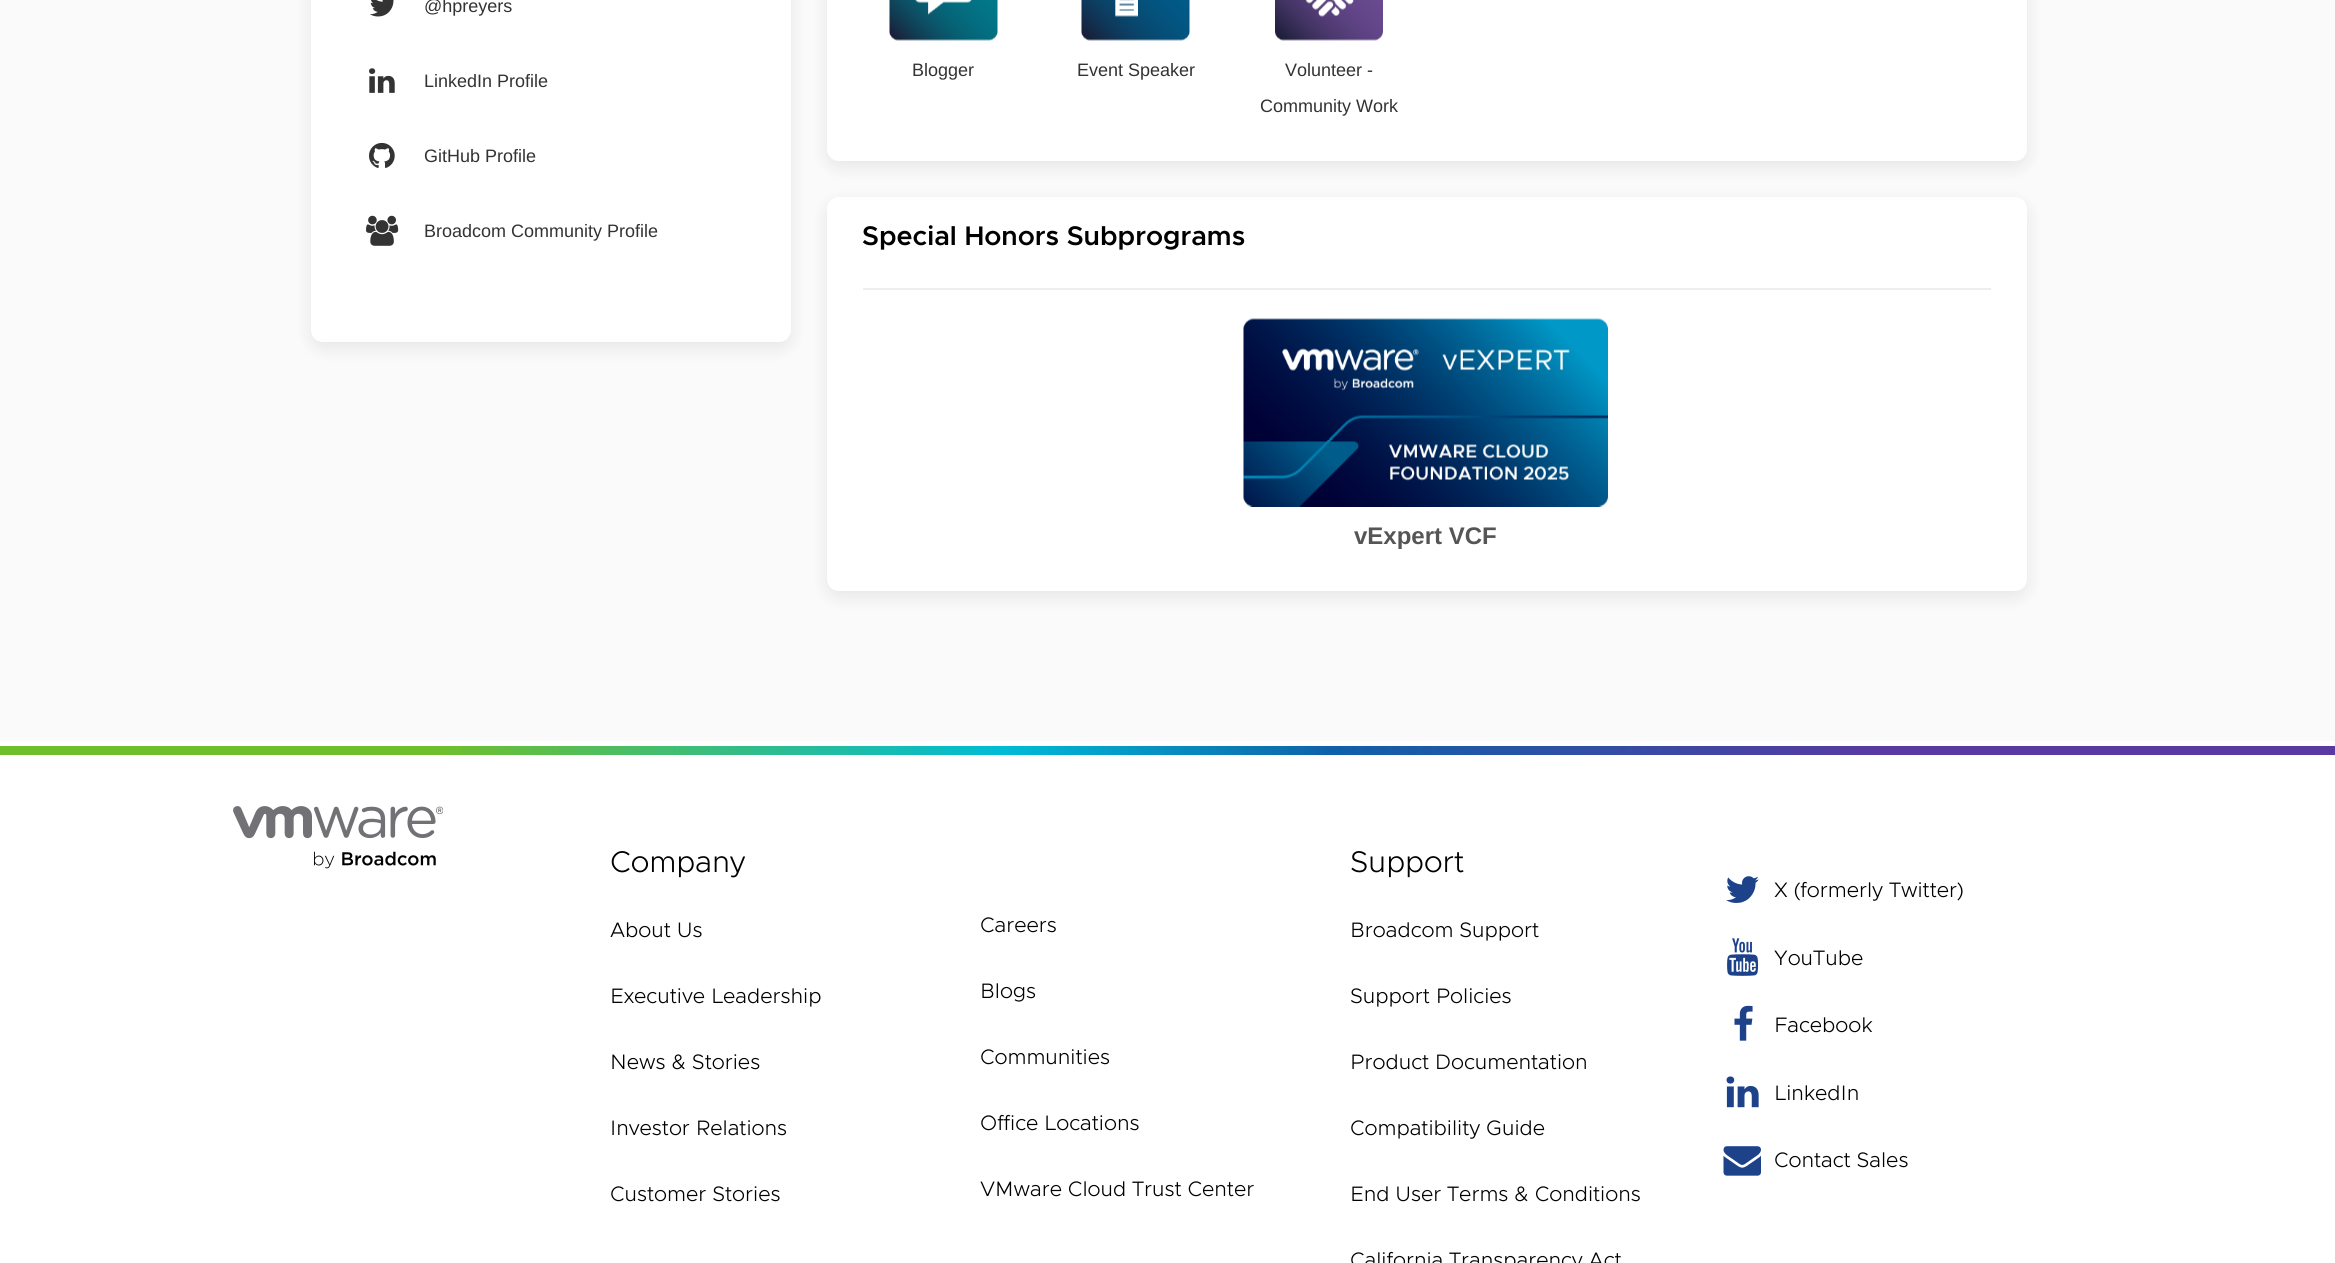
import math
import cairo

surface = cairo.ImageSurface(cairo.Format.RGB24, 2335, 1263)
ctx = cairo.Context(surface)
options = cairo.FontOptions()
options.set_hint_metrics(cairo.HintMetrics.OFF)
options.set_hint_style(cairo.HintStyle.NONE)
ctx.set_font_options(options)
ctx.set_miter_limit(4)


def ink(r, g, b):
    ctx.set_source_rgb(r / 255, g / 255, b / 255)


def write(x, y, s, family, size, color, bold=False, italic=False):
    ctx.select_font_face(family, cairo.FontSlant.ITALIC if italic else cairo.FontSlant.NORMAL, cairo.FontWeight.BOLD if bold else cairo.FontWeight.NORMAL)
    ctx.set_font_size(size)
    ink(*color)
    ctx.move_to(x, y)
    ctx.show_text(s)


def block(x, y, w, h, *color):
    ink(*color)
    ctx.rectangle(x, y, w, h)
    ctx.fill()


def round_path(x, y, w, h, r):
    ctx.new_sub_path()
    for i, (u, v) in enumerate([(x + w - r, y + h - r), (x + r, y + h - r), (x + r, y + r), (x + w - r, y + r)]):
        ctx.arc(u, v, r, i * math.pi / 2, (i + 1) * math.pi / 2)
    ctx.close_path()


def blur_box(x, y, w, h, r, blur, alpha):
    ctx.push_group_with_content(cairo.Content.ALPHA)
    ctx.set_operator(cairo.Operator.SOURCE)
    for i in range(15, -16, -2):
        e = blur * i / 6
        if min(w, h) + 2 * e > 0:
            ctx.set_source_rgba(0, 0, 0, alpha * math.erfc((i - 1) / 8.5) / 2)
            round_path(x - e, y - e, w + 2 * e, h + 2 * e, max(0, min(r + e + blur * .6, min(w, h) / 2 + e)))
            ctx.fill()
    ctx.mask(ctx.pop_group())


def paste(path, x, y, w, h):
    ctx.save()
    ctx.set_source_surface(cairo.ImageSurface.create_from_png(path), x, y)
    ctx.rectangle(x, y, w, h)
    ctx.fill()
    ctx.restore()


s1 = dict(family="Liberation Sans", size=18, color=(51, 51, 51))
s2 = dict(family="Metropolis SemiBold", size=27, color=(0, 0, 0))
s3 = dict(family="Liberation Sans", size=24, color=(85, 85, 85), bold=True)
s4 = dict(family="Metropolis Light", size=30, color=(0, 0, 0))
s5 = dict(family="Metropolis Light", size=21, color=(0, 0, 0))

ink(255, 255, 255)
ctx.paint()
block(0, 0, 2335, 741, 250, 250, 250)
ink(0, 0, 0)
blur_box(311, -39, 480, 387, 12, 9, 0.08)
ink(255, 255, 255)
round_path(311, -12, 480, 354, 12)
ctx.fill()
paste("pic1.png", 370, 0, 24, 17)
write(424, 12, "@hpreyers", **s1)
paste("pic2.png", 369, 68, 26, 25)
write(424, 87, "LinkedIn Profile", **s1)
paste("pic3.png", 369, 142, 26, 26)
write(424, 162, "GitHub Profile", **s1)
paste("pic4.png", 366, 215, 33, 31)
write(424, 237, "Broadcom Community Profile", **s1)
ink(0, 0, 0)
blur_box(827, -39, 1200, 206, 12, 9, 0.08)
ink(255, 255, 255)
round_path(827, -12, 1200, 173, 12)
ctx.fill()
paste("pic5.png", 889, 0, 109, 41)
write(912, 76, "Blogger", **s1)
paste("pic6.png", 1081, 0, 109, 41)
write(1077, 76, "Event Speaker", **s1)
paste("pic7.png", 1275, 0, 108, 41)
write(1285, 76, "Volunteer -", **s1)
write(1260, 112, "Community Work", **s1)
ink(0, 0, 0)
blur_box(827, 203, 1200, 394, 12, 9, 0.08)
ink(255, 255, 255)
round_path(827, 197, 1200, 394, 12)
ctx.fill()
block(863, 288, 1128, 2, 238, 238, 238)
write(862, 245, "Special Honors Subprograms", **s2)
paste("pic8.png", 1243, 318, 365, 189)
write(1354, 544, "vExpert VCF", **s3)
gradient = cairo.LinearGradient(0, 750, 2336, 750)
gradient.add_color_stop_rgba(0.19, 0.435, 0.745, 0.18, 1)
gradient.add_color_stop_rgba(0.43, 0, 0.733, 0.839, 1)
gradient.add_color_stop_rgba(0.57, 0.059, 0.38, 0.663, 1)
gradient.add_color_stop_rgba(0.81, 0.353, 0.224, 0.627, 1)
ctx.set_source(gradient)
ctx.rectangle(0, 746, 2335, 9)
ctx.fill()
paste("pic9.png", 233, 806, 210, 63)
write(610, 872, "Company", **s4)
write(610, 937, "About Us", **s5)
write(610, 1003, "Executive Leadership", **s5)
write(610, 1069, "News & Stories", **s5)
write(610, 1135, "Investor Relations", **s5)
write(610, 1201, "Customer Stories", **s5)
write(980, 932, "Careers", **s5)
write(980, 998, "Blogs", **s5)
write(980, 1064, "Communities", **s5)
write(980, 1130, "Office Locations", **s5)
write(980, 1196, "VMware Cloud Trust Center", **s5)
write(1350, 872, "Support", **s4)
write(1350, 937, "Broadcom Support", **s5)
write(1350, 1003, "Support Policies", **s5)
write(1350, 1069, "Product Documentation", **s5)
write(1350, 1135, "Compatibility Guide", **s5)
write(1350, 1201, "End User Terms & Conditions", **s5)
write(1350, 1267, "California Transparency Act", **s5)
paste("pic10.png", 1726, 876, 33, 27)
write(1774, 897, "X (formerly Twitter)", **s5)
paste("pic11.png", 1727, 938, 32, 38)
write(1774, 965, "YouTube", **s5)
paste("pic12.png", 1734, 1005, 19, 36)
write(1774, 1032, "Facebook", **s5)
paste("pic13.png", 1726, 1076, 33, 32)
write(1774, 1100, "LinkedIn", **s5)
paste("pic14.png", 1723, 1146, 38, 30)
write(1774, 1167, "Contact Sales", **s5)
surface.write_to_png("screenshot.png")
